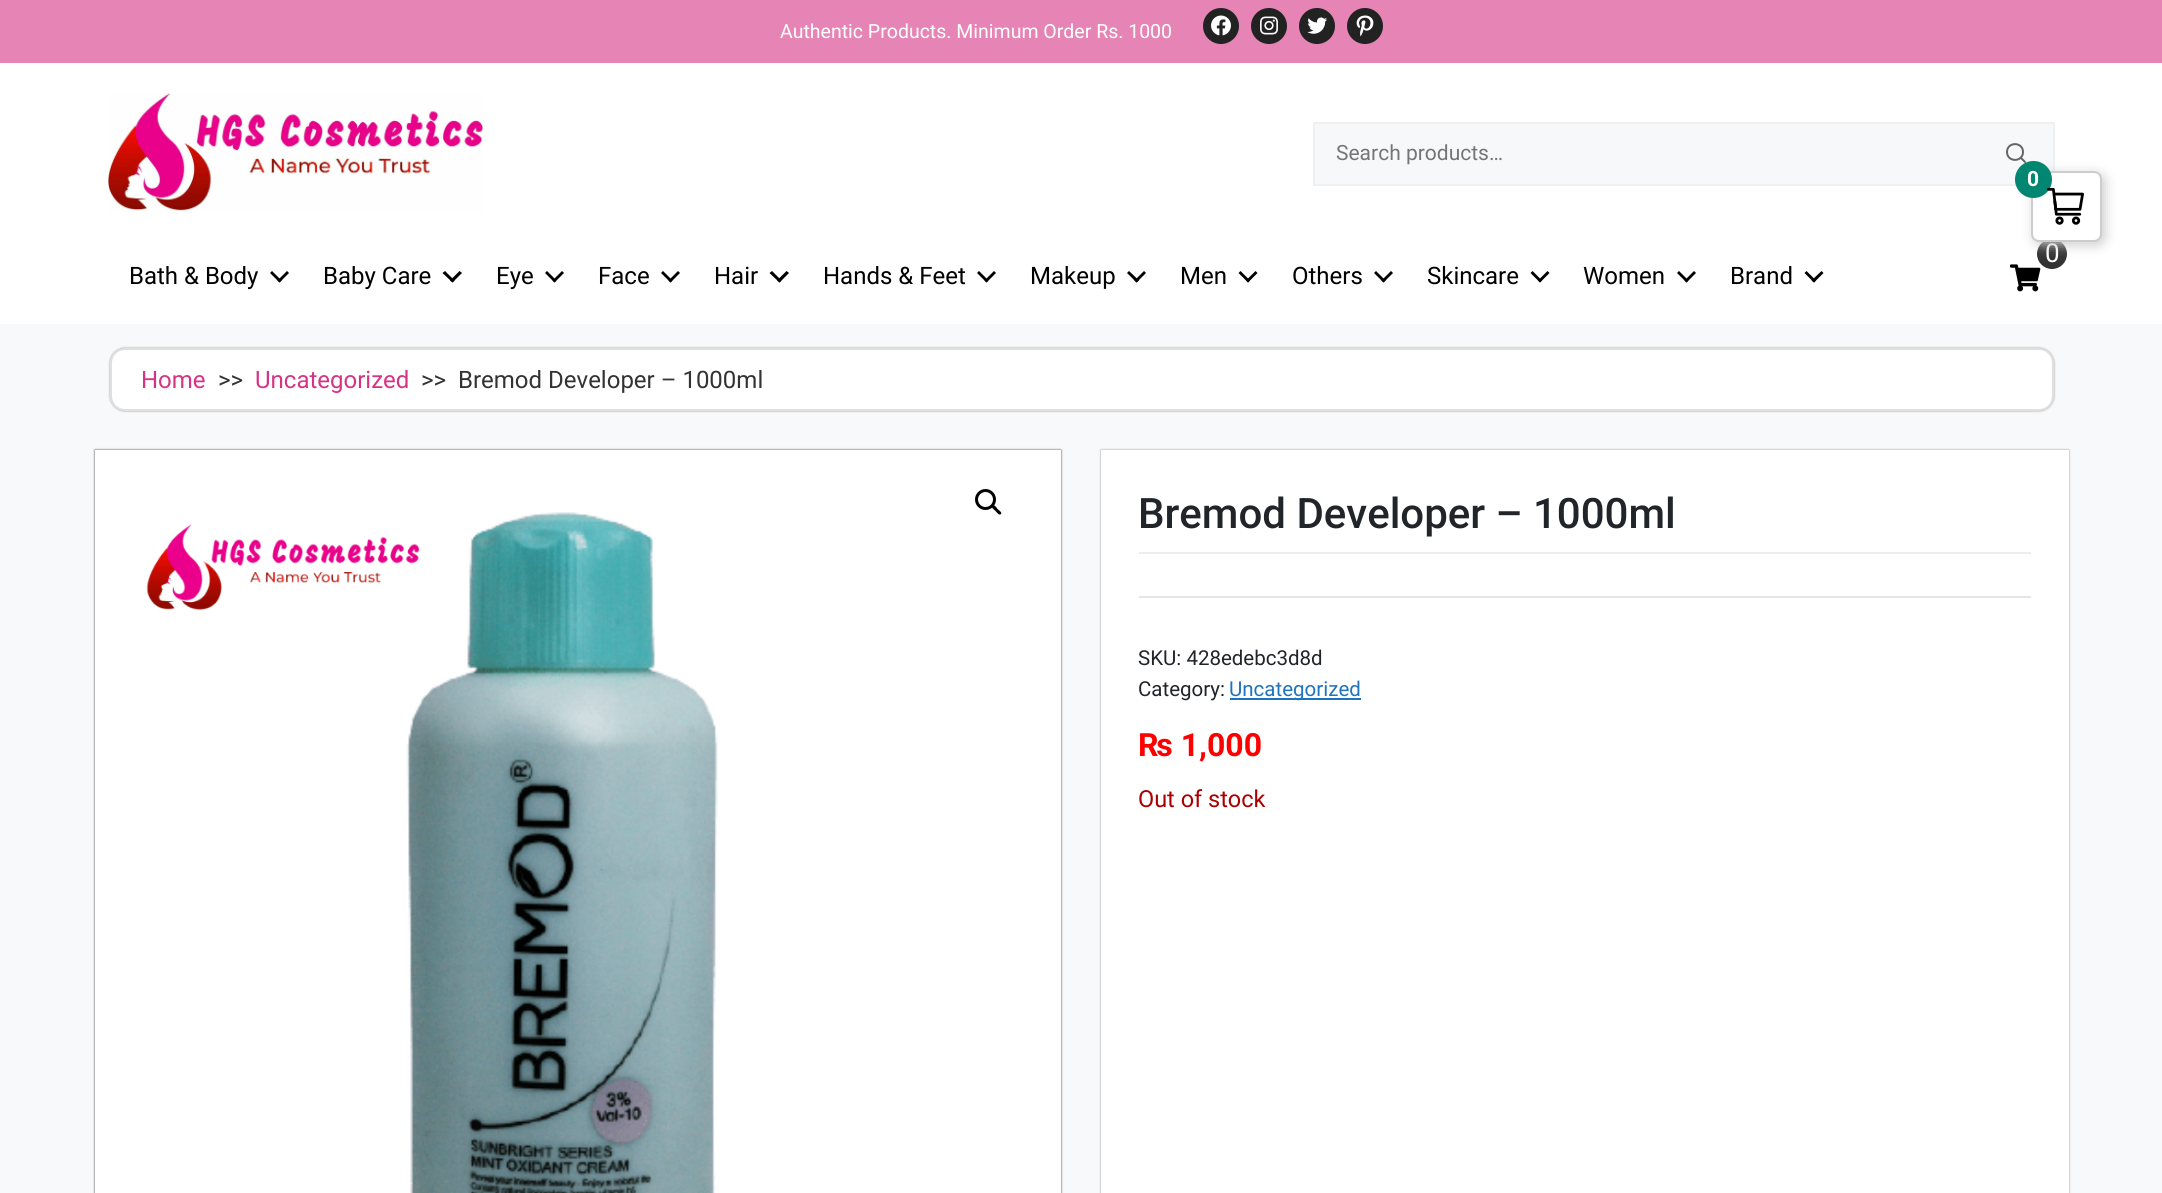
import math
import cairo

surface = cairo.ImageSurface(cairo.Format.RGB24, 2162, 1193)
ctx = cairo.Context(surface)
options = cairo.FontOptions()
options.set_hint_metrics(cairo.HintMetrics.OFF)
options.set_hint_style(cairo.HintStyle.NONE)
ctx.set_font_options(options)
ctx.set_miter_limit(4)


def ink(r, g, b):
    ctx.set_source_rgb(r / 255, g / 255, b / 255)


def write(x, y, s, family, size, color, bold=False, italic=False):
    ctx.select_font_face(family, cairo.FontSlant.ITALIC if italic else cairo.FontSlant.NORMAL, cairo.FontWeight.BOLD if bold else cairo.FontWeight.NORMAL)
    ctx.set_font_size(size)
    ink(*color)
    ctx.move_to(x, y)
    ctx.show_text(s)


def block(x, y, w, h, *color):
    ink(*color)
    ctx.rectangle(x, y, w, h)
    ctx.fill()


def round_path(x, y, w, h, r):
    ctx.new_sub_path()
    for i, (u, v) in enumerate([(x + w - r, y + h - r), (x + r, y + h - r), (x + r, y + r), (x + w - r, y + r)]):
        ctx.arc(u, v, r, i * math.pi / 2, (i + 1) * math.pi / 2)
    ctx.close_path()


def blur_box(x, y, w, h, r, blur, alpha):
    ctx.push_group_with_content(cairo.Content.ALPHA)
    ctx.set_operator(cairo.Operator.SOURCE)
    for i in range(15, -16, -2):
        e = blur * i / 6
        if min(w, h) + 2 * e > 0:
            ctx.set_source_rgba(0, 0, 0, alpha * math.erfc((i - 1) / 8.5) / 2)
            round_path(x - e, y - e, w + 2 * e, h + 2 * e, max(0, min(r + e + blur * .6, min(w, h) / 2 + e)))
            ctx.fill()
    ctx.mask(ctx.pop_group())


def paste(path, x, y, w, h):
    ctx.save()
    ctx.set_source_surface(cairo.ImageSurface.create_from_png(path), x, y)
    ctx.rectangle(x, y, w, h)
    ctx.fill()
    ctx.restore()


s1 = dict(family="Roboto", size=19.5, color=(255, 255, 255))
s2 = dict(family="Roboto", size=21, color=(117, 117, 117))
s3 = dict(family="Roboto", size=26, color=(255, 255, 255))
s4 = dict(family="Roboto", size=24, color=(0, 0, 0))
s5 = dict(family="Roboto", size=21, color=(255, 255, 255), bold=True)
s6 = dict(family="Roboto", size=24, color=(214, 51, 132))
s7 = dict(family="Roboto", size=24, color=(51, 51, 51))
s8 = dict(family="Roboto Medium", size=42, color=(33, 37, 41))
s9 = dict(family="Roboto", size=20.5, color=(33, 37, 41))
s10 = dict(family="Roboto", size=20.5, color=(30, 115, 190))
s11 = dict(family="Roboto", size=32, color=(255, 0, 0), bold=True)
s12 = dict(family="Roboto", size=23.5, color=(170, 0, 0))

ink(248, 249, 250)
ctx.paint()
block(0, 0, 2162, 63, 230, 133, 181)
write(780, 38, "Authentic Products. Minimum Order Rs. 1000", **s1)
ink(34, 34, 34)
ctx.new_path()
ctx.arc(1221, 26, 18, 0, 2 * math.pi)
ctx.fill()
paste("pic1.png", 1211, 15, 20, 21)
ctx.arc(1269, 26, 18, 0, 2 * math.pi)
ctx.fill()
paste("pic2.png", 1260, 16, 18, 19)
ctx.arc(1317, 26, 18, 0, 2 * math.pi)
ctx.fill()
paste("pic3.png", 1307, 17, 21, 17)
ctx.arc(1365, 26, 18, 0, 2 * math.pi)
ctx.fill()
paste("pic4.png", 1356, 15, 18, 22)
block(0, 63, 2162, 261, 255, 255, 255)
paste("pic5.png", 108, 93, 375, 120)
ink(247, 248, 249)
ctx.rectangle(1314, 123, 740, 62)
ctx.fill_preserve()
ink(240, 240, 240)
ctx.stroke()
write(1336, 160, "Search products…", **s2)
ctx.new_path()
ctx.move_to(2025, 162)
ctx.line_to(2020.5, 157.5)
ctx.move_to(2023, 152)
ctx.curve_to(2023, 162.5, 2007, 162.5, 2007, 152)
ctx.curve_to(2007, 141.5, 2023, 141.5, 2023, 152)
ctx.close_path()
ink(102, 102, 102)
ctx.set_line_cap(cairo.LineCap.ROUND)
ctx.set_line_join(cairo.LineJoin.ROUND)
ctx.stroke()
paste("pic6.png", 2010, 264, 31, 28)
ink(51, 51, 51)
ctx.arc(2052, 254, 15, 0, 2 * math.pi)
ctx.fill()
write(2045, 262, "0", **s3)
write(129, 284, "Bath & Body", **s4)
ctx.new_path()
ctx.move_to(287, 271)
ctx.line_to(289, 273)
ctx.line_to(279.5, 282.5)
ctx.line_to(277.5, 280.5)
ctx.close_path()
ctx.fill()
ctx.new_path()
ctx.move_to(272, 271)
ctx.line_to(281.5, 280.5)
ctx.line_to(279.5, 282.5)
ctx.line_to(270, 273)
ctx.close_path()
ctx.fill()
write(323, 284, "Baby Care", **s4)
ctx.new_path()
ctx.move_to(459.5, 271)
ctx.line_to(462, 273)
ctx.line_to(452.5, 282.5)
ctx.line_to(450, 280.5)
ctx.close_path()
ctx.fill()
ctx.new_path()
ctx.move_to(445, 271)
ctx.line_to(454.5, 280.5)
ctx.line_to(452.5, 282.5)
ctx.line_to(442.5, 273)
ctx.close_path()
ctx.fill()
write(496, 284, "Eye", **s4)
ctx.new_path()
ctx.move_to(562, 271)
ctx.line_to(564, 273)
ctx.line_to(554.5, 282.5)
ctx.line_to(552.5, 280.5)
ctx.close_path()
ctx.fill()
ctx.new_path()
ctx.move_to(547, 271)
ctx.line_to(556.5, 280.5)
ctx.line_to(554.5, 282.5)
ctx.line_to(545, 273)
ctx.close_path()
ctx.fill()
write(598, 284, "Face", **s4)
ctx.new_path()
ctx.move_to(678, 271)
ctx.line_to(680, 273)
ctx.line_to(670.5, 282.5)
ctx.line_to(668.5, 280.5)
ctx.close_path()
ctx.fill()
ctx.new_path()
ctx.move_to(663, 271)
ctx.line_to(672.5, 280.5)
ctx.line_to(670.5, 282.5)
ctx.line_to(661, 273)
ctx.close_path()
ctx.fill()
write(714, 284, "Hair", **s4)
ctx.new_path()
ctx.move_to(786.5, 271)
ctx.line_to(789, 273)
ctx.line_to(779.5, 282.5)
ctx.line_to(777, 280.5)
ctx.close_path()
ctx.fill()
ctx.new_path()
ctx.move_to(772, 271)
ctx.line_to(781.5, 280.5)
ctx.line_to(779.5, 282.5)
ctx.line_to(769.5, 273)
ctx.close_path()
ctx.fill()
write(823, 284, "Hands & Feet", **s4)
ctx.new_path()
ctx.move_to(994, 271)
ctx.line_to(996, 273)
ctx.line_to(986.5, 282.5)
ctx.line_to(984.5, 280.5)
ctx.close_path()
ctx.fill()
ctx.new_path()
ctx.move_to(979, 271)
ctx.line_to(988.5, 280.5)
ctx.line_to(986.5, 282.5)
ctx.line_to(977, 273)
ctx.close_path()
ctx.fill()
write(1030, 284, "Makeup", **s4)
ctx.new_path()
ctx.move_to(1144, 271)
ctx.line_to(1146, 273)
ctx.line_to(1136.5, 282.5)
ctx.line_to(1134.5, 280.5)
ctx.close_path()
ctx.fill()
ctx.new_path()
ctx.move_to(1129, 271)
ctx.line_to(1139, 280.5)
ctx.line_to(1136.5, 282.5)
ctx.line_to(1127, 273)
ctx.close_path()
ctx.fill()
write(1180, 284, "Men", **s4)
ctx.new_path()
ctx.move_to(1255.5, 271)
ctx.line_to(1257.5, 273)
ctx.line_to(1248, 282.5)
ctx.line_to(1246, 280.5)
ctx.close_path()
ctx.fill()
ctx.new_path()
ctx.move_to(1240.5, 271)
ctx.line_to(1250, 280.5)
ctx.line_to(1248, 282.5)
ctx.line_to(1238.5, 273)
ctx.close_path()
ctx.fill()
write(1292, 284, "Others", **s4)
ctx.new_path()
ctx.move_to(1391, 271)
ctx.line_to(1393, 273)
ctx.line_to(1383.5, 282.5)
ctx.line_to(1381.5, 280.5)
ctx.close_path()
ctx.fill()
ctx.new_path()
ctx.move_to(1376, 271)
ctx.line_to(1385.5, 280.5)
ctx.line_to(1383.5, 282.5)
ctx.line_to(1374, 273)
ctx.close_path()
ctx.fill()
write(1427, 284, "Skincare", **s4)
ctx.new_path()
ctx.move_to(1547.5, 271)
ctx.line_to(1549.5, 273)
ctx.line_to(1540, 282.5)
ctx.line_to(1538, 280.5)
ctx.close_path()
ctx.fill()
ctx.new_path()
ctx.move_to(1532.5, 271)
ctx.line_to(1542, 280.5)
ctx.line_to(1540, 282.5)
ctx.line_to(1530.5, 273)
ctx.close_path()
ctx.fill()
write(1583, 284, "Women", **s4)
ctx.new_path()
ctx.move_to(1694, 271)
ctx.line_to(1696, 273)
ctx.line_to(1686.5, 282.5)
ctx.line_to(1684.5, 280.5)
ctx.close_path()
ctx.fill()
ctx.new_path()
ctx.move_to(1679, 271)
ctx.line_to(1688.5, 280.5)
ctx.line_to(1686.5, 282.5)
ctx.line_to(1677, 273)
ctx.close_path()
ctx.fill()
write(1730, 284, "Brand", **s4)
ctx.new_path()
ctx.move_to(1821.5, 271)
ctx.line_to(1823.5, 273)
ctx.line_to(1814, 282.5)
ctx.line_to(1811.5, 280.5)
ctx.close_path()
ctx.fill()
ctx.new_path()
ctx.move_to(1806.5, 271)
ctx.line_to(1816, 280.5)
ctx.line_to(1814, 282.5)
ctx.line_to(1804.5, 273)
ctx.close_path()
ctx.fill()
ink(204, 204, 204)
blur_box(2034, 174, 71, 71, 8, 6, 1)
ink(255, 255, 255)
round_path(2032, 172, 69, 69, 7)
ctx.fill_preserve()
ink(204, 204, 204)
ctx.set_line_cap(cairo.LineCap.BUTT)
ctx.set_line_join(cairo.LineJoin.MITER)
ctx.stroke()
ink(0, 134, 113)
ctx.arc(2033.5, 179.5, 18.5, 0, 2 * math.pi)
ctx.fill()
write(2027, 186, "0", **s5)
paste("pic7.png", 2046, 187, 38, 38)
ink(153, 153, 153)
blur_box(110, 348, 1944, 63, 15, 1, 1)
ink(255, 255, 255)
round_path(111, 349, 1942, 61, 14)
ctx.fill_preserve()
ink(224, 224, 224)
ctx.stroke()
write(141, 388, "Home", **s6)
write(218, 388, ">>", **s7)
write(255, 388, "Uncategorized", **s6)
write(421, 388, ">>  Bremod Developer – 1000ml", **s7)
ink(51, 51, 51)
blur_box(95, 450, 966, 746, 0, 1, 1)
block(95, 450, 966, 743, 255, 255, 255)
ctx.arc(985.5, 499.5, 9, 0, 2 * math.pi)
ink(0, 0, 0)
ctx.set_line_width(3)
ctx.stroke()
ctx.new_path()
ctx.move_to(992.5, 505.5)
ctx.curve_to(994, 504, 997, 508, 997.5, 509)
ctx.curve_to(998.5, 510, 1002.5, 512.5, 1001, 514)
ctx.curve_to(999, 516, 996.5, 512, 995.5, 511)
ctx.curve_to(994.5, 510, 990.5, 507.5, 992.5, 505.5)
ctx.close_path()
ctx.fill()
paste("pic8.png", 146, 512, 572, 681)
ink(144, 144, 144)
blur_box(1101, 450, 968, 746, 0, 1, 1)
block(1101, 450, 968, 743, 255, 255, 255)
block(1139, 552, 892, 2, 238, 238, 238)
write(1138, 528, "Bremod Developer – 1000ml", **s8)
block(1139, 596, 892, 2, 230, 230, 230)
write(1138, 665, "SKU: 428edebc3d8d", **s9)
write(1138, 696, "Category:", **s9)
block(1230, 698, 131, 2, 30, 115, 190)
write(1229, 696, "Uncategorized", **s10)
write(1138, 756, "₨ 1,000", **s11)
write(1138, 807, "Out of stock", **s12)
surface.write_to_png("screenshot.png")
